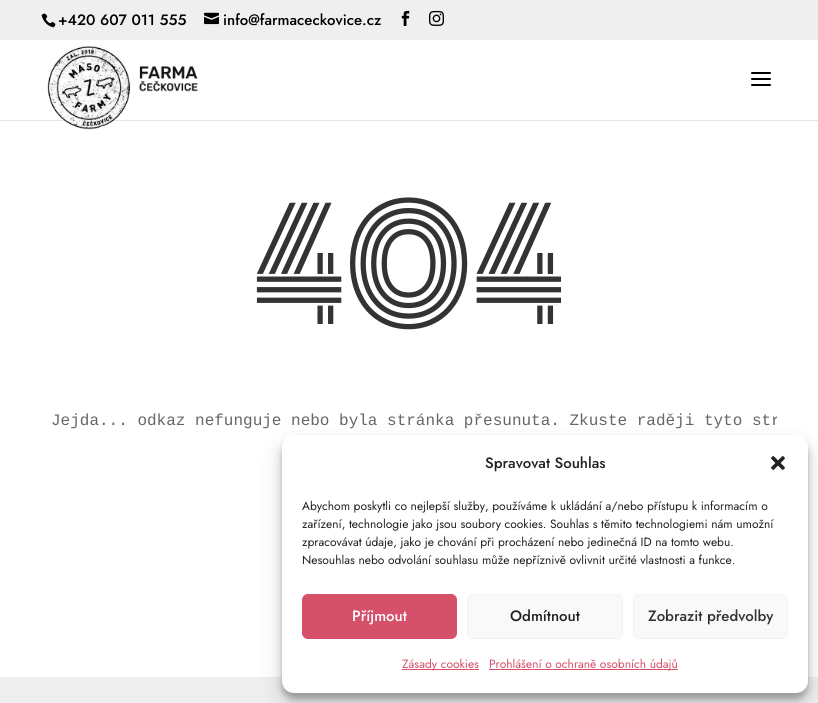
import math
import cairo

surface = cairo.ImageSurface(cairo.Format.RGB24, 818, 703)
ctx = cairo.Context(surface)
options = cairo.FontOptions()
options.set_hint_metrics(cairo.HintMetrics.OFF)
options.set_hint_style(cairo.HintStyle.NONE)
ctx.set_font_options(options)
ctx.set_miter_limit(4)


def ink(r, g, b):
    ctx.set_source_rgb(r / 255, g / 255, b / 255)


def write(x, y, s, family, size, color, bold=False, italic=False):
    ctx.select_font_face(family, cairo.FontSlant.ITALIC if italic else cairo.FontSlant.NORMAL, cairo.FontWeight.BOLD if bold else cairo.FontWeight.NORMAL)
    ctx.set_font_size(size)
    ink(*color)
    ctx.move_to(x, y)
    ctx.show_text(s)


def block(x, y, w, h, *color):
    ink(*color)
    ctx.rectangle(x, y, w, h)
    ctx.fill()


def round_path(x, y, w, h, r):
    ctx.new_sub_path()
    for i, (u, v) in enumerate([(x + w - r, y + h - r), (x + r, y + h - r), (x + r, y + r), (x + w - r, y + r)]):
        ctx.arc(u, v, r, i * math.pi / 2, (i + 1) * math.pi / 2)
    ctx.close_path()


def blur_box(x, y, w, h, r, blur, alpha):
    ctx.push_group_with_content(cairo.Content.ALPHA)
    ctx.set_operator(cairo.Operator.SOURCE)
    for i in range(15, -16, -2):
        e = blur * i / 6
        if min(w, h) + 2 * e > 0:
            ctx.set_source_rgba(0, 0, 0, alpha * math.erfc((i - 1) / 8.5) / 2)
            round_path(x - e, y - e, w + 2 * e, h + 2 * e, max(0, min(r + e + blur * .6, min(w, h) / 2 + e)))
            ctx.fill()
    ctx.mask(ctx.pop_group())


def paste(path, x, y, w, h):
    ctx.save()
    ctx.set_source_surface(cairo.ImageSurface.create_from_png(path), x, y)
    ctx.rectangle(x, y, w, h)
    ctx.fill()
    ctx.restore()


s1 = dict(family="Jost Medium", size=15, color=(0, 0, 0))
s2 = dict(family="Monoton", size=150, color=(51, 51, 51))
s3 = dict(family="Liberation Mono", size=16, color=(102, 102, 102))
s4 = dict(family="Jost Medium", size=15, color=(34, 34, 34))
s5 = dict(family="Jost", size=12, color=(34, 34, 34))
s6 = dict(family="Jost Medium", size=15, color=(255, 255, 255))
s7 = dict(family="Jost Medium", size=15, color=(51, 51, 51))
s8 = dict(family="Jost", size=12, color=(213, 81, 105))

ink(255, 255, 255)
ctx.paint()
block(0, 0, 818, 40, 239, 239, 239)
paste("pic1.png", 41, 13, 15, 15)
write(58, 25, "+420 607 011 555", **s1)
paste("pic2.png", 204, 12, 15, 13)
write(223, 25, "info@farmaceckovice.cz", **s1)
paste("pic3.png", 401, 10, 9, 16)
paste("pic4.png", 429, 10, 15, 16)
block(0, 120, 818, 1, 230, 230, 230)
paste("pic5.png", 47, 45, 151, 85)
paste("pic6.png", 751, 72, 20, 14)
write(252, 324, "404", **s2)
ctx.save()
ctx.rectangle(41, 398, 736, 47)
ctx.clip()
write(51, 425, "Jejda... odkaz nefunguje nebo byla stránka přesunuta. Zkuste raději tyto str", **s3)
ctx.restore()
block(0, 677, 818, 26, 239, 239, 239)
ink(0, 0, 0)
blur_box(282, 441, 526, 258, 12, 3, 0.23)
blur_box(282, 445, 526, 258, 12, 10, 0.19)
ink(255, 255, 255)
round_path(282, 435, 526, 258, 12)
ctx.fill()
write(485, 468, "Spravovat Souhlas", **s4)
paste("pic7.png", 771, 456, 14, 14)
write(302, 510, "Abychom poskytli co nejlepší služby, používáme k ukládání a/nebo přístupu k informacím o", **s5)
write(302, 528, "zařízení, technologie jako jsou soubory cookies. Souhlas s těmito technologiemi nám umožní", **s5)
write(302, 546, "zpracovávat údaje, jako je chování při procházení nebo jedinečná ID na tomto webu.", **s5)
write(302, 564, "Nesouhlas nebo odvolání souhlasu může nepříznivě ovlivnit určité vlastnosti a funkce.", **s5)
ink(213, 81, 105)
round_path(302.5, 594.5, 154, 44, 5.5)
ctx.fill_preserve()
ctx.set_line_width(1)
ctx.stroke()
write(352, 621, "Příjmout", **s6)
ink(249, 249, 249)
round_path(467.5, 594.5, 155, 44, 5.5)
ctx.fill_preserve()
ink(242, 242, 242)
ctx.stroke()
write(510, 621, "Odmítnout", **s4)
ink(249, 249, 249)
round_path(633.5, 594.5, 154, 44, 5.5)
ctx.fill_preserve()
ink(242, 242, 242)
ctx.stroke()
write(648, 621, "Zobrazit předvolby", **s7)
block(402, 669, 77, 1, 213, 81, 105)
write(402, 668, "Zásady cookies", **s8)
block(489, 669, 189, 1, 213, 81, 105)
write(489, 668, "Prohlášení o ochraně osobních údajů", **s8)
surface.write_to_png("screenshot.png")
